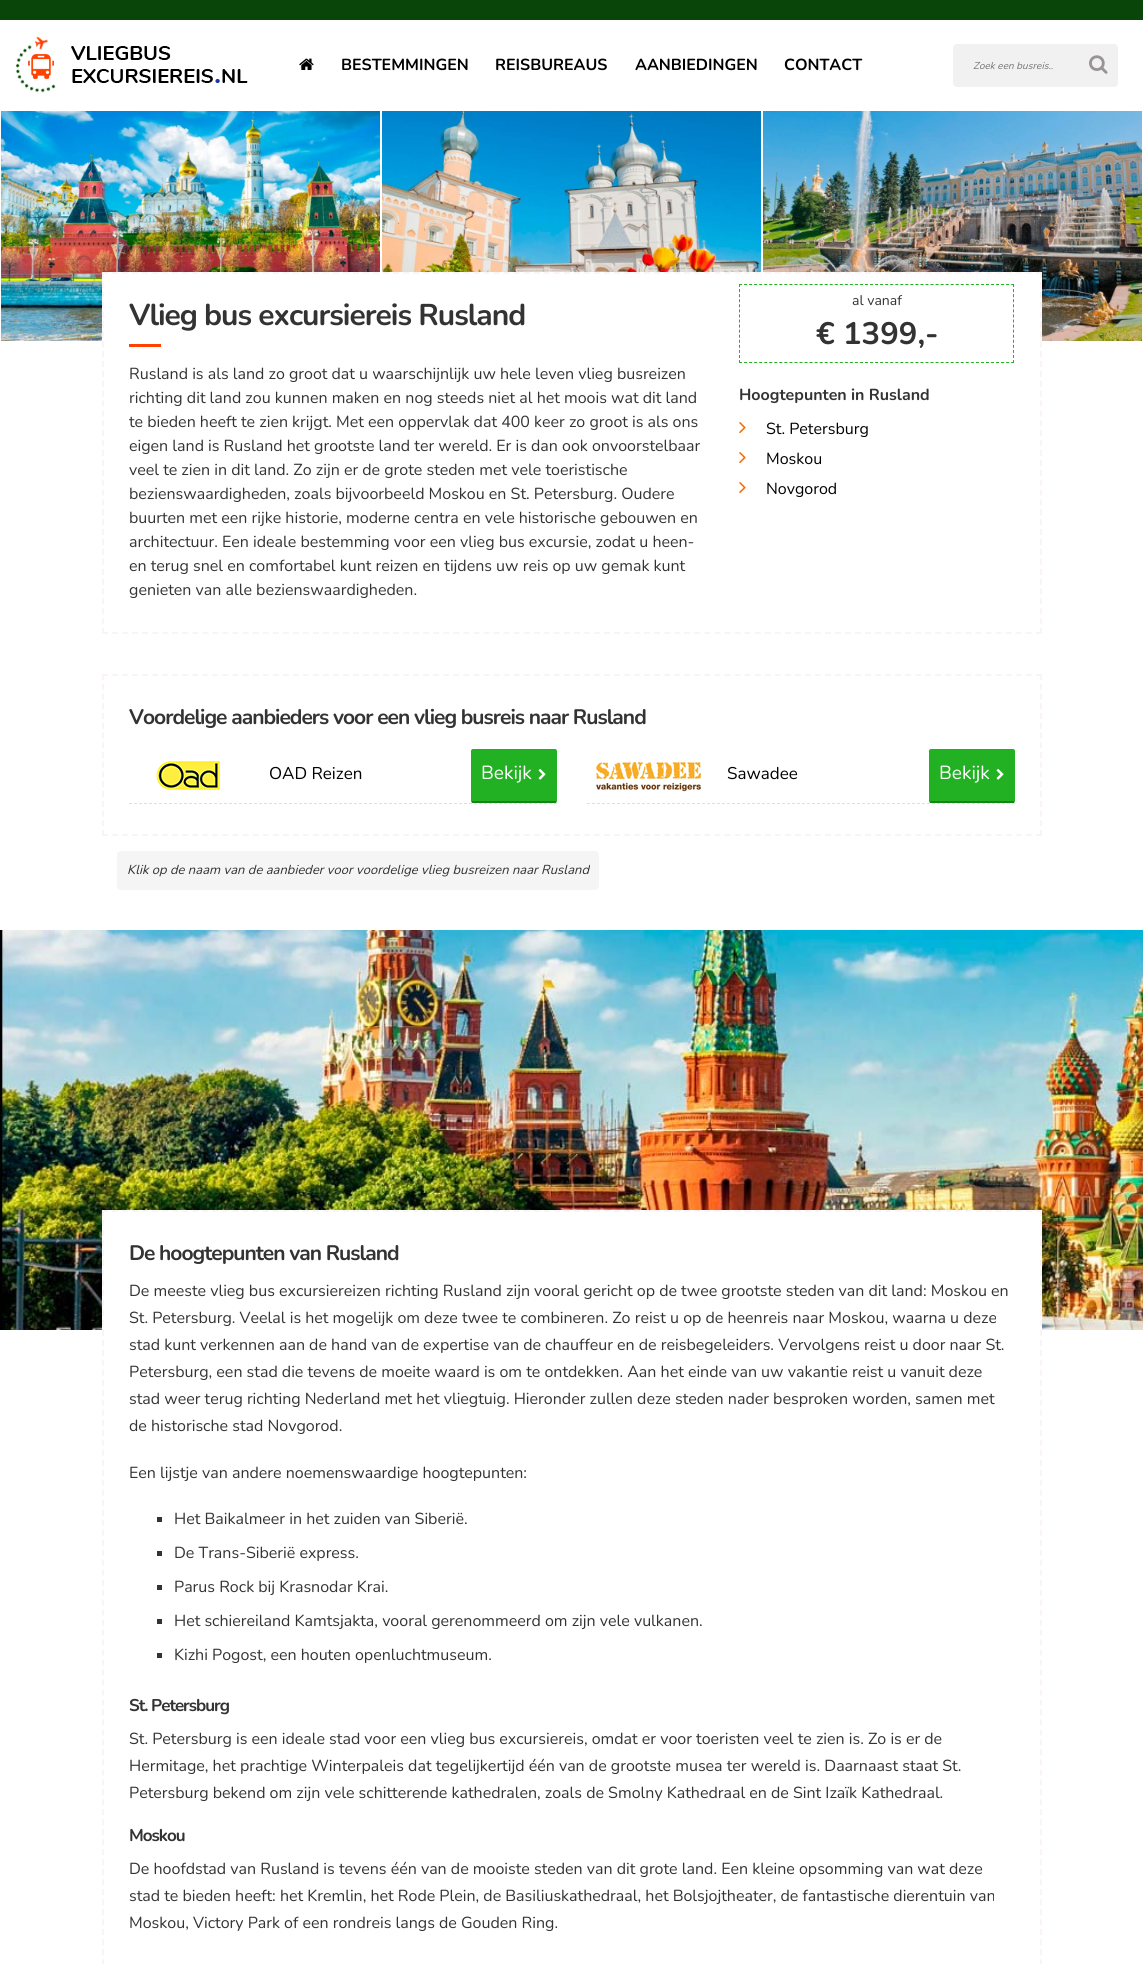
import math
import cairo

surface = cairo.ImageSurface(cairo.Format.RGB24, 1143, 1964)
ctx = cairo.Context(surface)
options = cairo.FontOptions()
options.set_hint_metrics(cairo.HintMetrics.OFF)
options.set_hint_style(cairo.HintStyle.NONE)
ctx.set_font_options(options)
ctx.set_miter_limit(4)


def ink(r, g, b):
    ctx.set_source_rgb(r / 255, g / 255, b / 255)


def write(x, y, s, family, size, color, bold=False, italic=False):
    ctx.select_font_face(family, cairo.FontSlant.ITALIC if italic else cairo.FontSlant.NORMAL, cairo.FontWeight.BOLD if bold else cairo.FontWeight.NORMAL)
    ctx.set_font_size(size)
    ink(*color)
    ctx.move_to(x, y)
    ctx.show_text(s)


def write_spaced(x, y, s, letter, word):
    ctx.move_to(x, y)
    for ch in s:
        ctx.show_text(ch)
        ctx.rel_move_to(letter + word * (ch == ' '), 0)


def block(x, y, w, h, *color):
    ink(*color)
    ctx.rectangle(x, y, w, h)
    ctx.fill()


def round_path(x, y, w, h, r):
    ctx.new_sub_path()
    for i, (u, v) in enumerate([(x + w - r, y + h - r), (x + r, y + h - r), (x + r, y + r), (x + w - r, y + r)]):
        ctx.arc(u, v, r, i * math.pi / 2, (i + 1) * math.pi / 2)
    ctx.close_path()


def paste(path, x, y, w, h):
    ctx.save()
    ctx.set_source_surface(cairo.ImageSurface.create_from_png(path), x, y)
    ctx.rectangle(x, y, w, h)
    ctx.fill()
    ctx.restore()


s1 = dict(family="Nunito", size=16, color=(0, 0, 0), bold=True)
s2 = dict(family="Nunito", size=10, color=(117, 117, 117), italic=True)
s3 = dict(family="Nunito", size=16, color=(51, 51, 51))
s4 = dict(family="Nunito", size=14, color=(51, 51, 51))
s5 = dict(family="Nunito", size=31, color=(51, 51, 51), bold=True)
s6 = dict(family="Nunito", size=16, color=(51, 51, 51), bold=True)
s7 = dict(family="Nunito", size=16, color=(0, 0, 0))
s8 = dict(family="Nunito", size=17, color=(0, 0, 0))
s9 = dict(family="Nunito", size=19, color=(255, 255, 255))
s10 = dict(family="Nunito", size=13, color=(51, 51, 51), italic=True)

ink(255, 255, 255)
ctx.paint()
block(0, 0, 1143, 20, 9, 68, 9)
paste("pic1.png", 15, 36, 233, 57)
paste("pic2.png", 299, 58, 15, 12)
write(341, 70, "BESTEMMINGEN", **s1)
write(495, 70, "REISBUREAUS", **s1)
write(635, 70, "AANBIEDINGEN", **s1)
write(784, 70, "CONTACT", **s1)
ink(242, 241, 241)
round_path(953, 44, 165, 43, 4)
ctx.fill()
write(973, 69, "Zoek een busreis..", **s2)
paste("pic3.png", 1089, 55, 19, 19)
paste("pic4.png", 1, 111, 379, 230)
paste("pic5.png", 382, 111, 379, 161)
paste("pic6.png", 763, 111, 379, 230)
block(102, 272, 940, 69, 255, 255, 255)
ctx.new_path()
ctx.move_to(102, 273)
ctx.line_to(1042, 273)
ink(251, 244, 244)
ctx.set_dash([6, 4.04])
ctx.stroke()
ctx.new_path()
ctx.move_to(1041, 272)
ctx.line_to(1041, 634)
ctx.set_dash([6, 3.89])
ctx.stroke()
ctx.new_path()
ctx.move_to(102, 633)
ctx.line_to(1042, 633)
ctx.set_dash([6, 4.04])
ctx.stroke()
ctx.new_path()
ctx.move_to(103, 272)
ctx.line_to(103, 634)
ctx.set_dash([6, 3.89])
ctx.stroke()
ctx.select_font_face("Nunito", cairo.FontSlant.NORMAL, cairo.FontWeight.BOLD)
ctx.set_font_size(30)
ink(51, 51, 51)
write_spaced(129, 325, "Vlieg bus excursiereis Rusland", -1, 0)
block(129, 344, 32, 3, 255, 66, 0)
write(129, 379, "Rusland is als land zo groot dat u waarschijnlijk uw hele leven vlieg busreizen", **s3)
write(129, 403, "richting dit land zou kunnen maken en nog steeds niet al het moois wat dit land", **s3)
write(129, 427, "te bieden heeft te zien krijgt. Met een oppervlak dat 400 keer zo groot is als ons", **s3)
write(129, 451, "eigen land is Rusland het grootste land ter wereld. Er is dan ook onvoorstelbaar", **s3)
write(129, 475, "veel te zien in dit land. Zo zijn er de grote steden met vele toeristische", **s3)
write(129, 499, "bezienswaardigheden, zoals bijvoorbeeld Moskou en St. Petersburg. Oudere", **s3)
write(129, 523, "buurten met een rijke historie, moderne centra en vele historische gebouwen en", **s3)
write(129, 547, "architectuur. Een ideale bestemming voor een vlieg bus excursie, zodat u heen-", **s3)
write(129, 571, "en terug snel en comfortabel kunt reizen en tijdens uw reis op uw gemak kunt", **s3)
write(129, 595, "genieten van alle bezienswaardigheden.", **s3)
ctx.new_path()
ctx.move_to(739, 284.5)
ctx.line_to(1014, 284.5)
ink(34, 177, 34)
ctx.set_line_width(1)
ctx.set_dash([3, 2.04])
ctx.stroke()
ctx.new_path()
ctx.move_to(1013.5, 284)
ctx.line_to(1013.5, 363)
ctx.set_dash([3, 2.07])
ctx.stroke()
ctx.new_path()
ctx.move_to(739, 362.5)
ctx.line_to(1014, 362.5)
ctx.set_dash([3, 2.04])
ctx.stroke()
ctx.new_path()
ctx.move_to(739.5, 284)
ctx.line_to(739.5, 363)
ctx.set_dash([3, 2.07])
ctx.stroke()
write(852, 305, "al vanaf", **s4)
write(816, 344, "€ 1399,-", **s5)
write(739, 400, "Hoogtepunten in Rusland", **s6)
paste("pic7.png", 739, 422, 7, 12)
write(766, 434, "St. Petersburg", **s7)
paste("pic7.png", 739, 452, 7, 12)
write(766, 464, "Moskou", **s7)
paste("pic7.png", 739, 482, 7, 12)
write(766, 494, "Novgorod", **s7)
ctx.new_path()
ctx.move_to(102, 675)
ctx.line_to(1042, 675)
ink(251, 244, 244)
ctx.set_line_width(2)
ctx.set_dash([6, 4.04])
ctx.stroke()
ctx.new_path()
ctx.move_to(1041, 674)
ctx.line_to(1041, 836)
ctx.set_dash([6, 3.75])
ctx.stroke()
ctx.new_path()
ctx.move_to(102, 835)
ctx.line_to(1042, 835)
ctx.set_dash([6, 4.04])
ctx.stroke()
ctx.new_path()
ctx.move_to(103, 674)
ctx.line_to(103, 836)
ctx.set_dash([6, 3.75])
ctx.stroke()
ctx.select_font_face("Nunito", cairo.FontSlant.NORMAL, cairo.FontWeight.BOLD)
ctx.set_font_size(21)
ink(51, 51, 51)
write_spaced(129, 724, "Voordelige aanbieders voor een vlieg busreis naar Rusland", -1, 0)
ctx.new_path()
ctx.move_to(129, 803.5)
ctx.line_to(557, 803.5)
ink(223, 223, 223)
ctx.set_line_width(1)
ctx.set_dash([3, 2])
ctx.stroke()
paste("pic8.png", 156, 761, 64, 29)
write(269, 779, "OAD Reizen", **s8)
ink(34, 177, 34)
round_path(471, 749, 86, 54, 2)
ctx.fill()
block(472, 801, 84, 2, 22, 132, 22)
write(481, 779, "Bekijk", **s9)
paste("pic9.png", 538, 768, 8, 12)
ctx.new_path()
ctx.move_to(587, 803.5)
ctx.line_to(1015, 803.5)
ink(223, 223, 223)
ctx.stroke()
paste("pic10.png", 596, 762, 106, 30)
write(727, 779, "Sawadee", **s8)
ink(34, 177, 34)
round_path(929, 749, 86, 54, 2)
ctx.fill()
block(930, 801, 84, 2, 22, 132, 22)
write(939, 779, "Bekijk", **s9)
paste("pic9.png", 996, 768, 8, 12)
ink(245, 245, 245)
round_path(117, 851, 482, 39, 4)
ctx.fill()
write(127, 874, "Klik op de naam van de aanbieder voor voordelige vlieg busreizen naar Rusland", **s10)
paste("pic11.png", 0, 930, 1143, 400)
block(102, 1210, 940, 120, 255, 255, 255)
ctx.new_path()
ctx.move_to(102, 1211)
ctx.line_to(1042, 1211)
ink(251, 244, 244)
ctx.set_line_width(2)
ctx.set_dash([6, 4.04])
ctx.stroke()
ctx.new_path()
ctx.move_to(1041, 1210)
ctx.line_to(1041, 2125)
ctx.set_dash([6, 3.99])
ctx.stroke()
ctx.new_path()
ctx.move_to(103, 1210)
ctx.line_to(103, 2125)
ctx.stroke()
ctx.select_font_face("Nunito", cairo.FontSlant.NORMAL, cairo.FontWeight.BOLD)
ctx.set_font_size(21)
ink(51, 51, 51)
write_spaced(129, 1260, "De hoogtepunten van Rusland", -1, 0)
write(129, 1296, "De meeste vlieg bus excursiereizen richting Rusland zijn vooral gericht op de twee grootste steden van dit land: Moskou en", **s3)
write(129, 1323, "St. Petersburg. Veelal is het mogelijk om deze twee te combineren. Zo reist u op de heenreis naar Moskou, waarna u deze", **s3)
write(129, 1350, "stad kunt verkennen aan de hand van de expertise van de chauffeur en de reisbegeleiders. Vervolgens reist u door naar St.", **s3)
write(129, 1377, "Petersburg, een stad die tevens de moeite waard is om te ontdekken. Aan het einde van uw vakantie reist u vanuit deze", **s3)
write(129, 1404, "stad weer terug richting Nederland met het vliegtuig. Hieronder zullen deze steden nader besproken worden, samen met", **s3)
write(129, 1431, "de historische stad Novgorod.", **s3)
write(129, 1478, "Een lijstje van andere noemenswaardige hoogtepunten:", **s3)
block(157, 1517, 5, 5, 51, 51, 51)
write(174, 1524, "Het Baikalmeer in het zuiden van Siberië.", **s3)
block(157, 1551, 5, 5, 51, 51, 51)
write(174, 1558, "De Trans-Siberië express.", **s3)
block(157, 1585, 5, 5, 51, 51, 51)
write(174, 1592, "Parus Rock bij Krasnodar Krai.", **s3)
block(157, 1619, 5, 5, 51, 51, 51)
write(174, 1626, "Het schiereiland Kamtsjakta, vooral gerenommeerd om zijn vele vulkanen.", **s3)
block(157, 1653, 5, 5, 51, 51, 51)
write(174, 1660, "Kizhi Pogost, een houten openluchtmuseum.", **s3)
ctx.select_font_face("Nunito", cairo.FontSlant.NORMAL, cairo.FontWeight.BOLD)
ctx.set_font_size(17)
write_spaced(129, 1711, "St. Petersburg", -1, 0)
write(129, 1744, "St. Petersburg is een ideale stad voor een vlieg bus excursiereis, omdat er voor toeristen veel te zien is. Zo is er de", **s3)
write(129, 1771, "Hermitage, het prachtige Winterpaleis dat tegelijkertijd één van de grootste musea ter wereld is. Daarnaast staat St.", **s3)
write(129, 1798, "Petersburg bekend om zijn vele schitterende kathedralen, zoals de Smolny Kathedraal en de Sint Izaïk Kathedraal.", **s3)
ctx.select_font_face("Nunito", cairo.FontSlant.NORMAL, cairo.FontWeight.BOLD)
ctx.set_font_size(17)
write_spaced(129, 1841, "Moskou", -1, 0)
write(129, 1874, "De hoofdstad van Rusland is tevens één van de mooiste steden van dit grote land. Een kleine opsomming van wat deze", **s3)
write(129, 1901, "stad te bieden heeft: het Kremlin, het Rode Plein, de Basiliuskathedraal, het Bolsjojtheater, de fantastische dierentuin van", **s3)
write(129, 1928, "Moskou, Victory Park of een rondreis langs de Gouden Ring.", **s3)
surface.write_to_png("screenshot.png")
